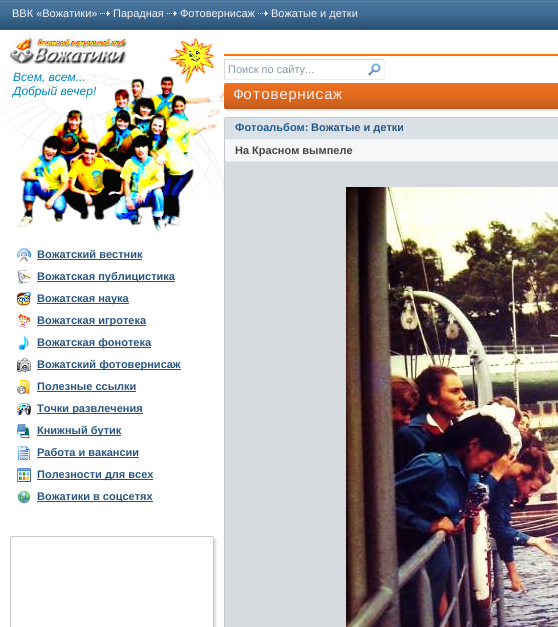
import math
import cairo

surface = cairo.ImageSurface(cairo.Format.RGB24, 558, 627)
ctx = cairo.Context(surface)
options = cairo.FontOptions()
options.set_hint_metrics(cairo.HintMetrics.OFF)
options.set_hint_style(cairo.HintStyle.NONE)
ctx.set_font_options(options)
ctx.set_miter_limit(4)


def ink(r, g, b):
    ctx.set_source_rgb(r / 255, g / 255, b / 255)


def write(x, y, s, family, size, color, bold=False, italic=False):
    ctx.select_font_face(family, cairo.FontSlant.ITALIC if italic else cairo.FontSlant.NORMAL, cairo.FontWeight.BOLD if bold else cairo.FontWeight.NORMAL)
    ctx.set_font_size(size)
    ink(*color)
    ctx.move_to(x, y)
    ctx.show_text(s)


def block(x, y, w, h, *color):
    ink(*color)
    ctx.rectangle(x, y, w, h)
    ctx.fill()


def round_path(x, y, w, h, r):
    ctx.new_sub_path()
    for i, (u, v) in enumerate([(x + w - r, y + h - r), (x + r, y + h - r), (x + r, y + r), (x + w - r, y + r)]):
        ctx.arc(u, v, r, i * math.pi / 2, (i + 1) * math.pi / 2)
    ctx.close_path()


def blur_box(x, y, w, h, r, blur, alpha):
    ctx.push_group_with_content(cairo.Content.ALPHA)
    ctx.set_operator(cairo.Operator.SOURCE)
    for i in range(15, -16, -2):
        e = blur * i / 6
        if min(w, h) + 2 * e > 0:
            ctx.set_source_rgba(0, 0, 0, alpha * math.erfc((i - 1) / 8.5) / 2)
            round_path(x - e, y - e, w + 2 * e, h + 2 * e, max(0, min(r + e + blur * .6, min(w, h) / 2 + e)))
            ctx.fill()
    ctx.mask(ctx.pop_group())


def paste(path, x, y, w, h):
    ctx.save()
    ctx.set_source_surface(cairo.ImageSurface.create_from_png(path), x, y)
    ctx.rectangle(x, y, w, h)
    ctx.fill()
    ctx.restore()


s1 = dict(family="Liberation Sans", size=11, color=(241, 243, 245))
s2 = dict(family="Liberation Sans", size=11, color=(136, 153, 170))
s3 = dict(family="Liberation Sans", size=12, color=(0, 136, 187), italic=True)
s4 = dict(family="Liberation Sans", size=11, color=(40, 85, 130), bold=True)
s5 = dict(family="Liberation Mono", size=15, color=(241, 243, 245))
s6 = dict(family="Liberation Sans", size=11, color=(33, 93, 147), bold=True)
s7 = dict(family="Liberation Sans", size=11, color=(68, 68, 68), bold=True)

ink(255, 255, 255)
ctx.paint()
paste("pic1.png", 0, 37, 224, 195)
paste("pic2.png", 0, 0, 558, 30)
write(12, 17, "ВВК «Вожатики»", **s1)
paste("pic3.png", 100, 11, 10, 5)
write(113, 17, "Парадная", **s1)
paste("pic3.png", 167, 11, 10, 5)
write(180, 17, "Фотовернисаж", **s1)
paste("pic3.png", 258, 11, 10, 5)
write(271, 17, "Вожатые и детки", **s1)
block(224, 54, 334, 2, 255, 119, 0)
block(224, 59, 161, 1, 213, 216, 218)
block(384, 59, 1, 21, 240, 241, 243)
block(224, 79, 161, 1, 234, 237, 239)
block(224, 59, 1, 21, 218, 221, 223)
write(228, 73, "Поиск по сайту...", **s2)
paste("pic4.png", 368, 63, 13, 13)
write(13, 81, "Всем, всем...", **s3)
write(13, 95, "Добрый вечер!", **s3)
paste("pic5.png", 17, 248, 14, 14)
write(37, 258, "Вожатский вестник", **s4)
block(37, 259, 105, 1, 40, 85, 130)
paste("pic6.png", 17, 270, 14, 14)
block(37, 281, 138, 1, 40, 85, 130)
write(37, 280, "Вожатская публицистика", **s4)
paste("pic7.png", 17, 292, 14, 14)
block(37, 303, 92, 1, 40, 85, 130)
write(37, 302, "Вожатская наука", **s4)
paste("pic8.png", 17, 314, 14, 14)
block(37, 325, 109, 1, 40, 85, 130)
write(37, 324, "Вожатская игротека", **s4)
paste("pic9.png", 18, 336, 11, 14)
block(37, 347, 114, 1, 40, 85, 130)
write(37, 346, "Вожатская фонотека", **s4)
paste("pic10.png", 17, 358, 14, 14)
block(37, 369, 144, 1, 40, 85, 130)
write(37, 368, "Вожатский фотовернисаж", **s4)
paste("pic11.png", 17, 380, 13, 14)
write(37, 390, "Полезные ссылки", **s4)
block(37, 391, 99, 1, 40, 85, 130)
paste("pic12.png", 17, 402, 14, 14)
block(37, 413, 106, 1, 40, 85, 130)
write(37, 412, "Точки развлечения", **s4)
paste("pic13.png", 17, 424, 14, 14)
block(37, 435, 84, 1, 40, 85, 130)
write(37, 434, "Книжный бутик", **s4)
paste("pic14.png", 18, 446, 12, 14)
write(37, 456, "Работа и вакансии", **s4)
block(37, 457, 102, 1, 40, 85, 130)
paste("pic15.png", 17, 468, 14, 14)
block(37, 479, 116, 1, 40, 85, 130)
write(37, 478, "Полезности для всех", **s4)
paste("pic16.png", 17, 490, 14, 14)
block(37, 501, 116, 1, 40, 85, 130)
write(37, 500, "Вожатики в соцсетях", **s4)
ctx.save()
ctx.set_fill_rule(cairo.FillRule.EVEN_ODD)
ctx.new_path()
ctx.move_to(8, 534)
ctx.line_to(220, 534)
ctx.line_to(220, 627)
ctx.line_to(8, 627)
ctx.close_path()
ctx.move_to(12, 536)
ctx.line_to(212, 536)
ctx.curve_to(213, 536, 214, 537, 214, 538)
ctx.line_to(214, 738)
ctx.curve_to(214, 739, 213, 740, 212, 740)
ctx.line_to(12, 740)
ctx.curve_to(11, 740, 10, 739, 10, 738)
ctx.line_to(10, 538)
ctx.curve_to(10, 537, 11, 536, 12, 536)
ctx.close_path()
ctx.clip()
ink(221, 221, 221)
blur_box(12, 538, 204, 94, 2, 1, 1)
ctx.restore()
round_path(10.5, 536.5, 203, 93, 1.5)
ink(199, 202, 207)
ctx.set_line_width(1)
ctx.stroke()
ink(221, 221, 221)
blur_box(226, 85, 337, 26, 2, 1, 1)
round_path(224.5, 83.5, 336, 25, 1.5)
ink(199, 202, 207)
ctx.stroke()
ink(239, 112, 33)
round_path(224, 83, 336, 26, 2)
ctx.fill()
paste("pic17.png", 224, 86, 334, 23)
write(234, 99, "Фотовернисаж", **s5)
ink(215, 218, 223)
round_path(224.5, 117.5, 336, 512, 1.5)
ctx.fill_preserve()
ink(199, 202, 207)
ctx.stroke()
block(225, 118, 333, 20, 218, 226, 232)
write(235, 131, "Фотоальбом:", **s6)
write(311, 131, "Вожатые и детки", **s4)
block(225, 139, 333, 22, 246, 247, 249)
block(225, 161, 333, 1, 229, 234, 239)
write(235, 154, "На Красном вымпеле", **s7)
paste("pic18.png", 346, 187, 212, 440)
surface.write_to_png("screenshot.png")
